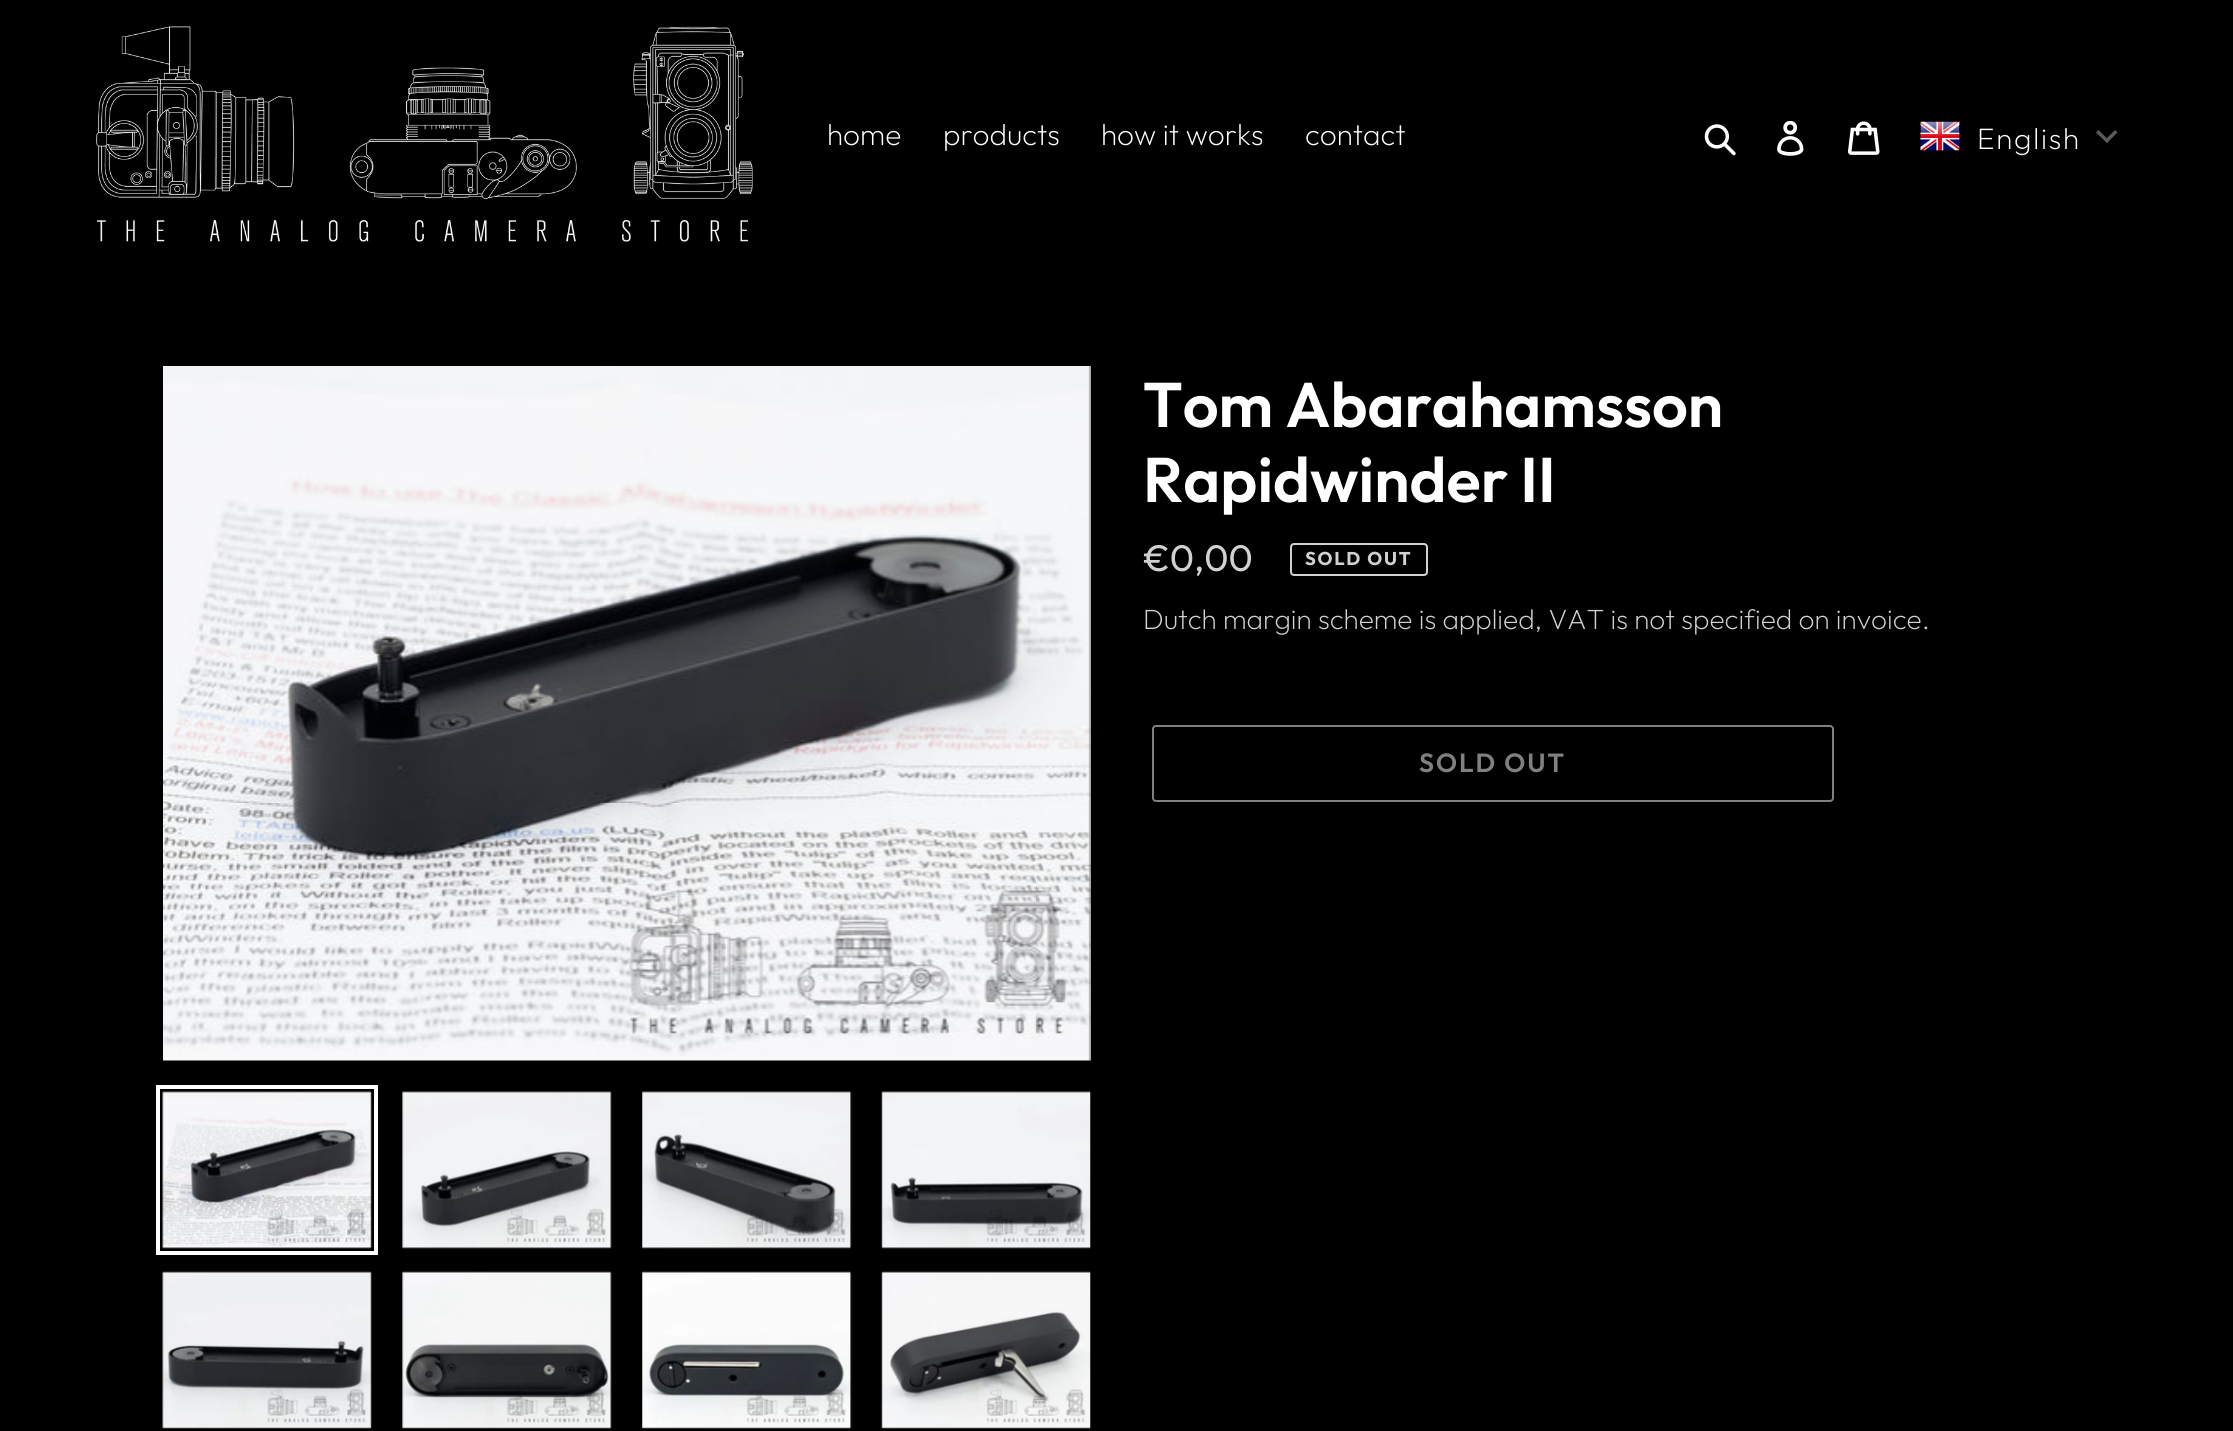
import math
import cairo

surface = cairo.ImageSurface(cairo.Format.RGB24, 2233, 1431)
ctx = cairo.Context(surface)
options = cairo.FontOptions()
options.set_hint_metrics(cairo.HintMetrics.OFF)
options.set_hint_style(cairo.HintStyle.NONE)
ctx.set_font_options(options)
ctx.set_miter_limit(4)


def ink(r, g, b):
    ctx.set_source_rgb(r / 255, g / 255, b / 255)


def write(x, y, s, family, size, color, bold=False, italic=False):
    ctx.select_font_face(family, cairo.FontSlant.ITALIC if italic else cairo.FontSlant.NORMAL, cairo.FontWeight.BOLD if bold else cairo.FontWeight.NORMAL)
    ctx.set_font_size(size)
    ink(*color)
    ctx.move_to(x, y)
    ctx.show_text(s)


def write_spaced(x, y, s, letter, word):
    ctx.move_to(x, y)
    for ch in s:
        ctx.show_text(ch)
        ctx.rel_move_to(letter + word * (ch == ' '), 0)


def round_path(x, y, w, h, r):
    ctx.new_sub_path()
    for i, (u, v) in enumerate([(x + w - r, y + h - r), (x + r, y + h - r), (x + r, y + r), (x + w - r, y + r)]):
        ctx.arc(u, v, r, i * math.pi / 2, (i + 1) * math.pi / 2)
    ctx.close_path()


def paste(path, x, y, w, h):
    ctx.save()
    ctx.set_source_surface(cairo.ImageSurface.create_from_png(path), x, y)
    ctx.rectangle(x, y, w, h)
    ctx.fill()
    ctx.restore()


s1 = dict(family="Outfit ExtraLight", size=29.75, color=(255, 255, 255))
s2 = dict(family="Outfit SemiBold", size=63, color=(255, 255, 255))
s3 = dict(family="Outfit", size=37, color=(210, 208, 208))
s4 = dict(family="Outfit ExtraLight", size=28, color=(210, 208, 208))

ink(0, 0, 0)
ctx.paint()
paste("pic1.png", 96, 26, 657, 216)
write(827, 145, "home", **s1)
write(943, 145, "products", **s1)
write(1101, 145, "how it works", **s1)
write(1305, 145, "contact", **s1)
paste("pic2.png", 1704, 124, 32, 32)
paste("pic3.png", 1777, 121, 27, 35)
paste("pic4.png", 1848, 121, 32, 34)
paste("pic5.png", 1920, 121, 40, 30)
write_spaced(1977, 149, "English", 1.75, 0)
ink(91, 91, 91)
ctx.new_path()
ctx.move_to(2115, 130)
ctx.line_to(2117.5, 132.5)
ctx.line_to(2107, 143)
ctx.line_to(2104.5, 140.5)
ctx.close_path()
ctx.fill()
ctx.new_path()
ctx.move_to(2098.5, 130)
ctx.line_to(2109, 140.5)
ctx.line_to(2107, 143)
ctx.line_to(2096, 132.5)
ctx.close_path()
ctx.fill()
paste("pic6.png", 163, 366, 928, 695)
ctx.rectangle(158, 1087, 218, 166)
ink(255, 255, 255)
ctx.set_line_width(4)
ctx.stroke()
paste("pic7.png", 162, 1091, 210, 158)
paste("pic8.png", 402, 1091, 210, 158)
paste("pic9.png", 642, 1091, 210, 158)
paste("pic10.png", 881, 1091, 210, 158)
paste("pic11.png", 162, 1271, 210, 158)
paste("pic12.png", 402, 1271, 210, 158)
paste("pic13.png", 642, 1271, 210, 158)
paste("pic14.png", 881, 1271, 210, 158)
write(1143, 427, "Tom Abarahamsson", **s2)
write(1143, 502, "Rapidwinder II", **s2)
write(1143, 571, "€0,00", **s3)
round_path(1291, 544, 136, 31, 3)
ctx.set_line_width(2)
ctx.stroke()
ctx.select_font_face("Outfit", cairo.FontSlant.NORMAL, cairo.FontWeight.BOLD)
ctx.set_font_size(18.5)
write_spaced(1305, 565, "SOLD OUT", 1.75, 0)
write(1143, 629, "Dutch margin scheme is applied, VAT is not specified on invoice.", **s4)
round_path(1153, 726, 680, 75, 3)
ink(128, 128, 128)
ctx.stroke()
ctx.select_font_face("Outfit SemiBold")
ctx.set_font_size(26.25)
write_spaced(1419, 772, "SOLD OUT", 2, 0)
surface.write_to_png("screenshot.png")
